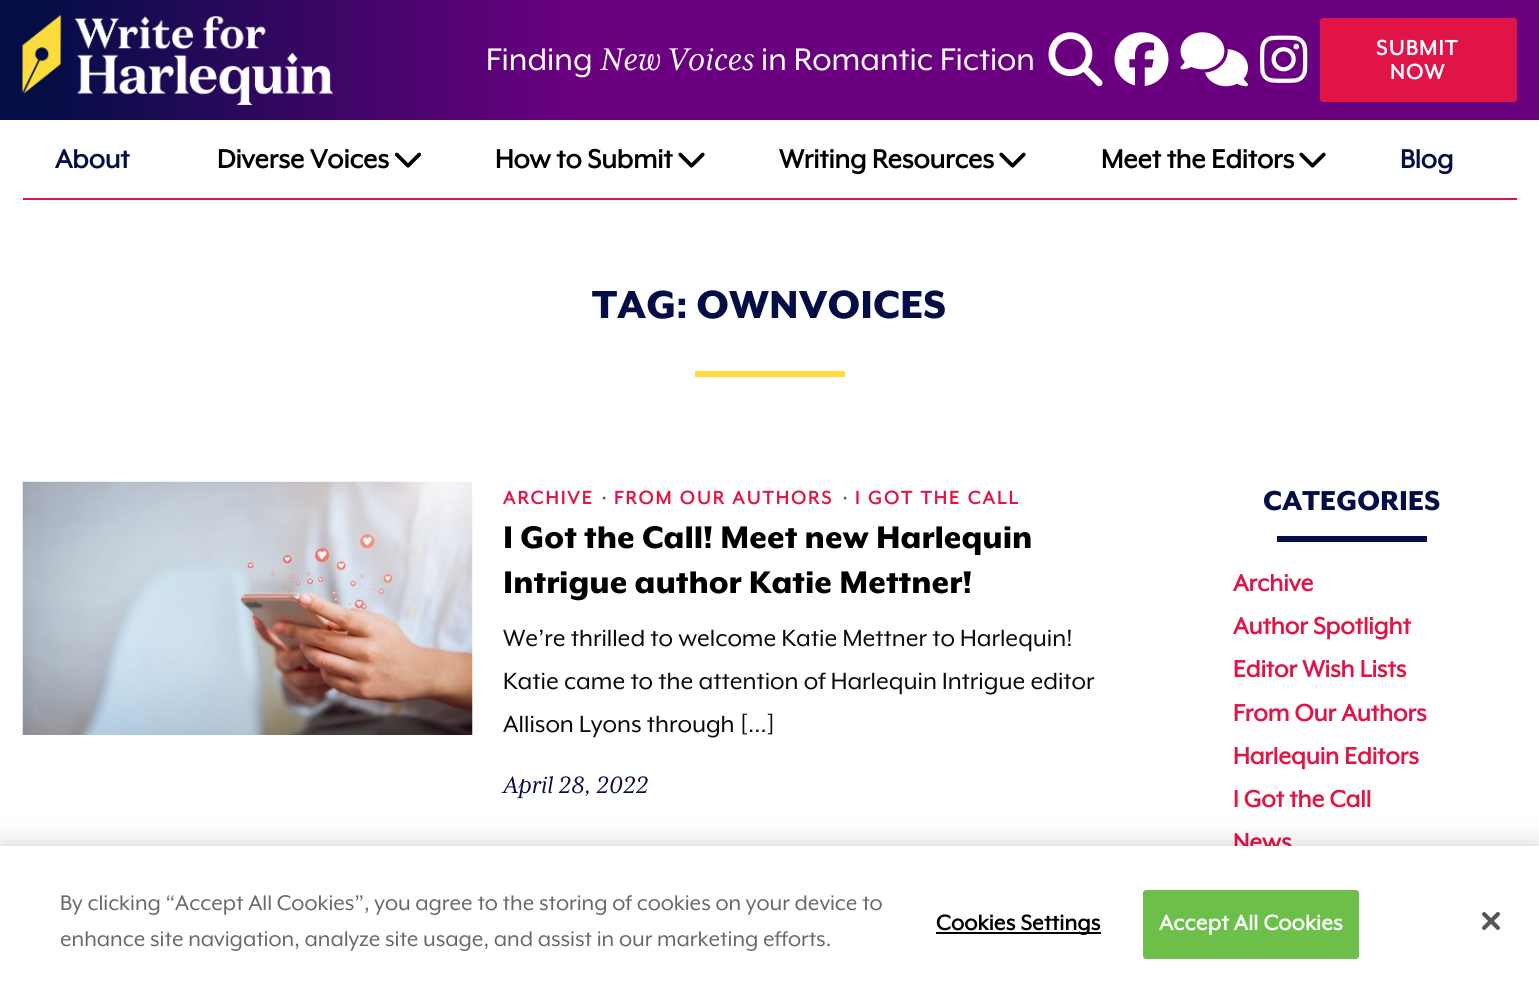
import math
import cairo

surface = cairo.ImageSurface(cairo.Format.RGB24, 1539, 1000)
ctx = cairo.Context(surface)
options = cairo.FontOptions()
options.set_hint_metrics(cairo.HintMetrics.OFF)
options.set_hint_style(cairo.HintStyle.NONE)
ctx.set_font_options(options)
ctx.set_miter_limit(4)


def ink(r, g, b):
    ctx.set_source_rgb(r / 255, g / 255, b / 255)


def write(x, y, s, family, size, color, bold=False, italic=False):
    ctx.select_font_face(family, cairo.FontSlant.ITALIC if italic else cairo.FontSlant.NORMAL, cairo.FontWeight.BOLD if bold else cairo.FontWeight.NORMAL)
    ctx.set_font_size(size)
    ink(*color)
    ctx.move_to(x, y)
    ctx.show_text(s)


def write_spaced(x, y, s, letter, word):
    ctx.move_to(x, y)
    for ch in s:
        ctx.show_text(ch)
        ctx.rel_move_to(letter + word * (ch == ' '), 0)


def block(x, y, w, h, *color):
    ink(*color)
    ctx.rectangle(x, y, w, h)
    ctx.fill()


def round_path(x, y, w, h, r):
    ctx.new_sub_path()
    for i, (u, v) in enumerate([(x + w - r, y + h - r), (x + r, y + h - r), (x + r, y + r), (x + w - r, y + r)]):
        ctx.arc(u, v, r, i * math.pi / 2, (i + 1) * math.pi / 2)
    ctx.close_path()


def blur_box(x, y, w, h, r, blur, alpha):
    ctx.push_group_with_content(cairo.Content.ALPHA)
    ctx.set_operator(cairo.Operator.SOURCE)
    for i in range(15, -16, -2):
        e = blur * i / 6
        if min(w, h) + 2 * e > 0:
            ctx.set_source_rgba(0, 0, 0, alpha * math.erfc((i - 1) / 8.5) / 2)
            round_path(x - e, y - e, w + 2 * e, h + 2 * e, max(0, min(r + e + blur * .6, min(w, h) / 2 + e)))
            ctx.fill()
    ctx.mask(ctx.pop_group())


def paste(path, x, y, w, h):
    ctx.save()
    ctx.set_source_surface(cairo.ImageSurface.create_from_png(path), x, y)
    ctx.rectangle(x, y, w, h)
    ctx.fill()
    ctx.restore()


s1 = dict(family="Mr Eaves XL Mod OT", size=36, color=(255, 255, 255))
s2 = dict(family="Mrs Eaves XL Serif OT", size=36, color=(255, 255, 255), italic=True)
s3 = dict(family="Mr Eaves XL Mod OT", size=30, color=(5, 13, 70), bold=True)
s4 = dict(family="Mr Eaves XL Mod OT", size=30, color=(0, 0, 0), bold=True)
s5 = dict(family="Mr Eaves XL Mod OT Black", size=45, color=(5, 13, 70))
s6 = dict(family="Mr Eaves XL Mod OT", size=21, color=(89, 89, 89), bold=True)
s7 = dict(family="Mr Eaves XL Mod OT Black", size=36, color=(0, 0, 0))
s8 = dict(family="Mr Eaves XL Mod OT", size=27, color=(10, 10, 10))
s9 = dict(family="Mrs Eaves XL Serif OT", size=27, color=(5, 13, 70), italic=True)
s10 = dict(family="Mr Eaves XL Mod OT Black", size=31.5, color=(5, 13, 70))
s11 = dict(family="Mr Eaves XL Mod OT", size=27, color=(225, 20, 71), bold=True)
s12 = dict(family="Mr Eaves XL Mod OT", size=24.4, color=(105, 105, 105))

ink(255, 255, 255)
ctx.paint()
gradient = cairo.LinearGradient(0, 60, 1539, 60)
gradient.add_color_stop_rgba(0.03, 0.02, 0.051, 0.275, 1)
gradient.add_color_stop_rgba(0.37, 0.416, 0, 0.502, 1)
ctx.set_source(gradient)
ctx.rectangle(0, 0, 1539, 120)
ctx.fill()
paste("pic1.png", 22, 15, 311, 90)
write(486, 70, "Finding", **s1)
write(600, 70, "New Voices", **s2)
write(761, 70, "in Romantic Fiction", **s1)
paste("pic2.png", 1048, 32, 55, 55)
paste("pic3.png", 1114, 32, 55, 54)
paste("pic4.png", 1180, 32, 68, 55)
paste("pic5.png", 1260, 35, 48, 48)
ink(225, 20, 71)
round_path(1320, 18, 197, 84, 3)
ctx.fill()
ctx.select_font_face("Mr Eaves XL Mod OT", cairo.FontSlant.NORMAL, cairo.FontWeight.BOLD)
ctx.set_font_size(24)
ink(255, 255, 255)
write_spaced(1376, 55, "SUBMIT", 1.5, 0)
write_spaced(1390, 79, "NOW", 1.5, 0)
block(23, 198, 1494, 2, 225, 20, 71)
write(55, 168, "About", **s3)
write(217, 168, "Diverse Voices", **s4)
paste("pic6.png", 394, 152, 28, 16)
write(495, 168, "How to Submit", **s4)
paste("pic7.png", 678, 152, 27, 16)
write(779, 168, "Writing Resources", **s4)
paste("pic7.png", 999, 152, 27, 16)
write(1101, 168, "Meet the Editors", **s4)
paste("pic7.png", 1299, 152, 27, 16)
write(1400, 168, "Blog", **s3)
write(592, 318, "TAG: OWNVOICES", **s5)
block(695, 371, 150, 6, 255, 219, 59)
paste("pic8.png", 22, 481, 451, 254)
ctx.select_font_face("Mr Eaves XL Mod OT", cairo.FontSlant.NORMAL, cairo.FontWeight.BOLD)
ctx.set_font_size(21)
ink(225, 20, 71)
write_spaced(503, 504, "ARCHIVE", 2.3, 0)
write(601, 504, "·", **s6)
ink(225, 20, 71)
write_spaced(614, 504, "FROM OUR AUTHORS", 2.3, 0)
write(842, 504, "·", **s6)
ink(225, 20, 71)
write_spaced(855, 504, "I GOT THE CALL", 2.3, 0)
write(503, 548, "I Got the Call! Meet new Harlequin", **s7)
write(503, 593, "Intrigue author Katie Mettner!", **s7)
write(503, 646, "We’re thrilled to welcome Katie Mettner to Harlequin!", **s8)
write(503, 689, "Katie came to the attention of Harlequin Intrigue editor", **s8)
write(503, 732, "Allison Lyons through […]", **s8)
write(503, 793, "April 28, 2022", **s9)
write(1263, 510, "CATEGORIES", **s10)
block(1277, 536, 150, 6, 5, 13, 70)
write(1233, 591, "Archive", **s11)
write(1233, 634, "Author Spotlight", **s11)
write(1233, 677, "Editor Wish Lists", **s11)
write(1233, 721, "From Our Authors", **s11)
write(1233, 764, "Harlequin Editors", **s11)
write(1233, 807, "I Got the Call", **s11)
write(1233, 850, "News", **s11)
ink(0, 0, 0)
blur_box(0, 846, 1539, 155, 0, 13.5, 0.2)
block(0, 846, 1539, 154, 255, 255, 255)
write(60, 910, "By clicking “Accept All Cookies”, you agree to the storing of cookies on your device to", **s12)
write(60, 946, "enhance site navigation, analyze site usage, and assist in our marketing efforts.", **s12)
block(936, 932, 165, 2, 0, 0, 0)
ctx.select_font_face("Mr Eaves XL Mod OT", cairo.FontSlant.NORMAL, cairo.FontWeight.BOLD)
write_spaced(936, 930, "Cookies Settings", 0.25, 0)
ink(108, 192, 74)
round_path(1144, 891, 214, 67, 2)
ctx.fill_preserve()
ctx.stroke()
ink(255, 255, 255)
write_spaced(1159, 930, "Accept All Cookies", 0.25, 0)
paste("pic9.png", 1482, 912, 18, 18)
surface.write_to_png("screenshot.png")
